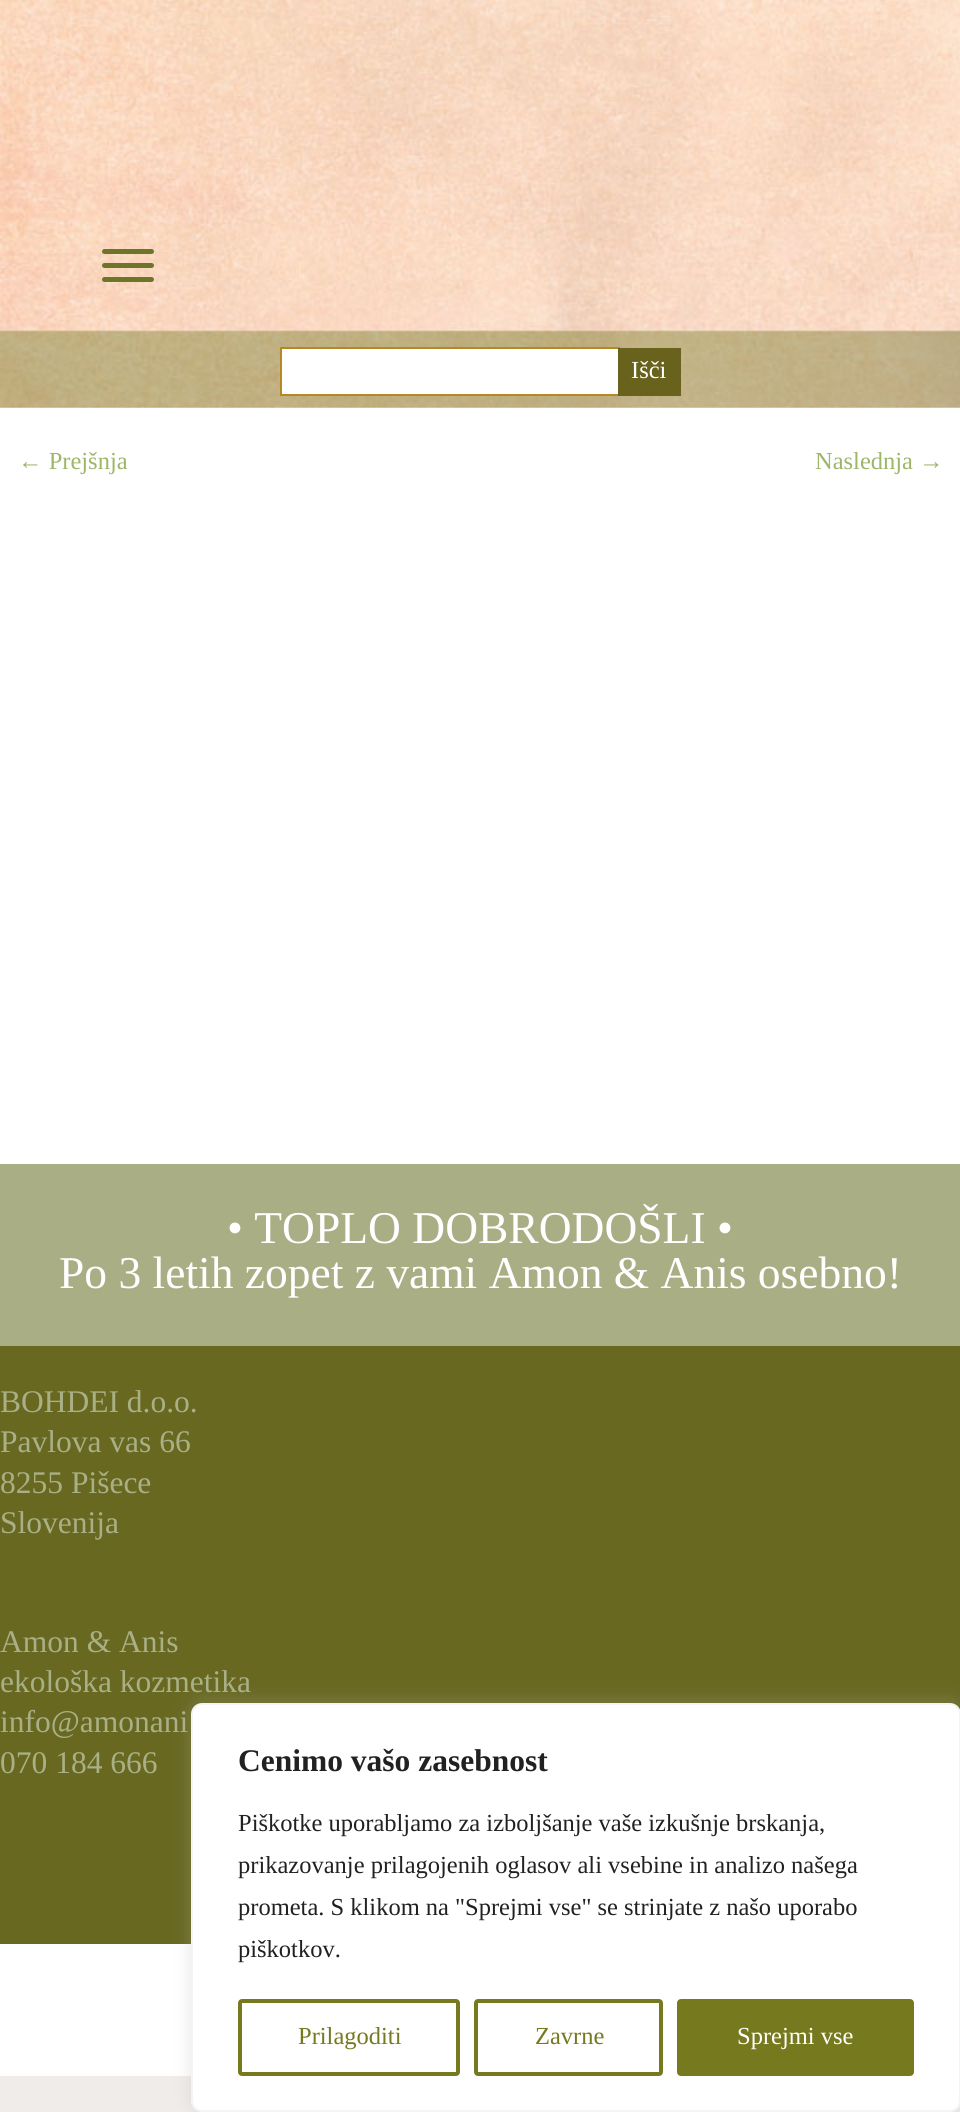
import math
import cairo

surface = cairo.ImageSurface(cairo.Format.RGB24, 960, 2112)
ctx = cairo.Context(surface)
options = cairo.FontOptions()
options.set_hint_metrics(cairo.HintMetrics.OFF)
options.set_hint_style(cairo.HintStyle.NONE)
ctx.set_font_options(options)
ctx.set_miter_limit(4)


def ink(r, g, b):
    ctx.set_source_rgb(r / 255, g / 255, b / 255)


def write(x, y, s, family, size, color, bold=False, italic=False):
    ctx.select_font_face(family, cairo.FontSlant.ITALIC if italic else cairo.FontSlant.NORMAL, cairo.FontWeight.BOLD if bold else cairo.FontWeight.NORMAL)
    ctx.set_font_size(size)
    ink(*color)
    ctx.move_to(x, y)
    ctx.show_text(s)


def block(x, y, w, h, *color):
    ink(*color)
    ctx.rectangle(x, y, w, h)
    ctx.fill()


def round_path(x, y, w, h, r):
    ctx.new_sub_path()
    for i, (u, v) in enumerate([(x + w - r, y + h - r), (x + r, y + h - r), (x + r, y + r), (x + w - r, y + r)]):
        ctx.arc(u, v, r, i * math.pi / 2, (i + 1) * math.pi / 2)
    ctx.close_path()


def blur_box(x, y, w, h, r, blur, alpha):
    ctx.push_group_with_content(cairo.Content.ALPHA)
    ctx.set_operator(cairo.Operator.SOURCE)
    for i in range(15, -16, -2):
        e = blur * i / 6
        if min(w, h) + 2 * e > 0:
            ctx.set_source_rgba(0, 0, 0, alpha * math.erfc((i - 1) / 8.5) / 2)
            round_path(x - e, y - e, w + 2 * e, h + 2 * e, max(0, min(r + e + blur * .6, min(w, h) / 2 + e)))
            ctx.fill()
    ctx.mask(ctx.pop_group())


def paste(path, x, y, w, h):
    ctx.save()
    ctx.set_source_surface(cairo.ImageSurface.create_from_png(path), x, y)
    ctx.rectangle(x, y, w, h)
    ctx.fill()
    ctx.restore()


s1 = dict(family="Liberation Serif", size=24.5, color=(255, 255, 255))
s2 = dict(family="Liberation Serif", size=24.5, color=(157, 182, 104))
s3 = dict(family="Liberation Serif", size=45.5, color=(255, 255, 255))
s4 = dict(family="Liberation Serif", size=31.5, color=(169, 176, 134))
s5 = dict(family="Liberation Serif", size=31.5, color=(33, 33, 33), bold=True)
s6 = dict(family="Liberation Serif", size=24.5, color=(33, 33, 33))
s7 = dict(family="Liberation Serif", size=24.5, color=(118, 121, 29))

ink(239, 236, 234)
ctx.paint()
block(0, 407, 960, 757, 255, 255, 255)
paste("pic1.png", 0, 0, 960, 408)
ink(108, 117, 41)
round_path(102, 249, 52, 5, 2.5)
ctx.fill()
round_path(102, 263, 52, 5, 2.5)
ctx.fill()
round_path(102, 277, 52, 5, 2.5)
ctx.fill()
ink(255, 255, 255)
ctx.rectangle(281, 348, 338, 47)
ctx.fill_preserve()
ink(181, 136, 36)
ctx.stroke()
block(618, 348, 63, 48, 105, 98, 29)
write(631, 378, "Išči", **s1)
write(18, 469, "← Prejšnja", **s2)
write(815, 469, "Naslednja →", **s2)
block(0, 1346, 960, 598, 104, 104, 33)
block(0, 1164, 960, 182, 170, 174, 132)
write(227, 1243, "• TOPLO DOBRODOŠLI •", **s3)
write(59, 1288, "Po 3 letih zopet z vami Amon & Anis osebno!", **s3)
write(0, 1412, "BOHDEI d.o.o.", **s4)
write(0, 1452, "Pavlova vas 66", **s4)
write(0, 1493, "8255 Pišece", **s4)
write(0, 1533, "Slovenija", **s4)
write(0, 1652, "Amon & Anis", **s4)
write(0, 1692, "ekološka kozmetika", **s4)
write(0, 1732, "info@amonani", **s4)
write(0, 1773, "070 184 666", **s4)
block(0, 1944, 191, 132, 255, 255, 255)
ink(172, 171, 171)
blur_box(191, 1701, 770, 410, 11, 9, 0.3)
ink(255, 255, 255)
round_path(192, 1704, 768, 407, 10)
ctx.fill_preserve()
ink(244, 244, 244)
ctx.stroke()
write(238, 1771, "Cenimo vašo zasebnost", **s5)
write(238, 1831, "Piškotke uporabljamo za izboljšanje vaše izkušnje brskanja,", **s6)
write(238, 1873, "prikazovanje prilagojenih oglasov ali vsebine in analizo našega", **s6)
write(238, 1915, "prometa. S klikom na \"Sprejmi vse\" se strinjate z našo uporabo", **s6)
write(238, 1957, "piškotkov.", **s6)
round_path(240, 2001, 218, 73, 2)
ink(118, 121, 29)
ctx.set_line_width(4)
ctx.stroke()
write(298, 2044, "Prilagoditi", **s7)
round_path(476, 2001, 185, 73, 2)
ctx.stroke()
write(535, 2044, "Zavrne", **s7)
round_path(679, 2001, 233, 73, 2)
ctx.fill_preserve()
ctx.stroke()
write(737, 2044, "Sprejmi vse", **s1)
surface.write_to_png("screenshot.png")
